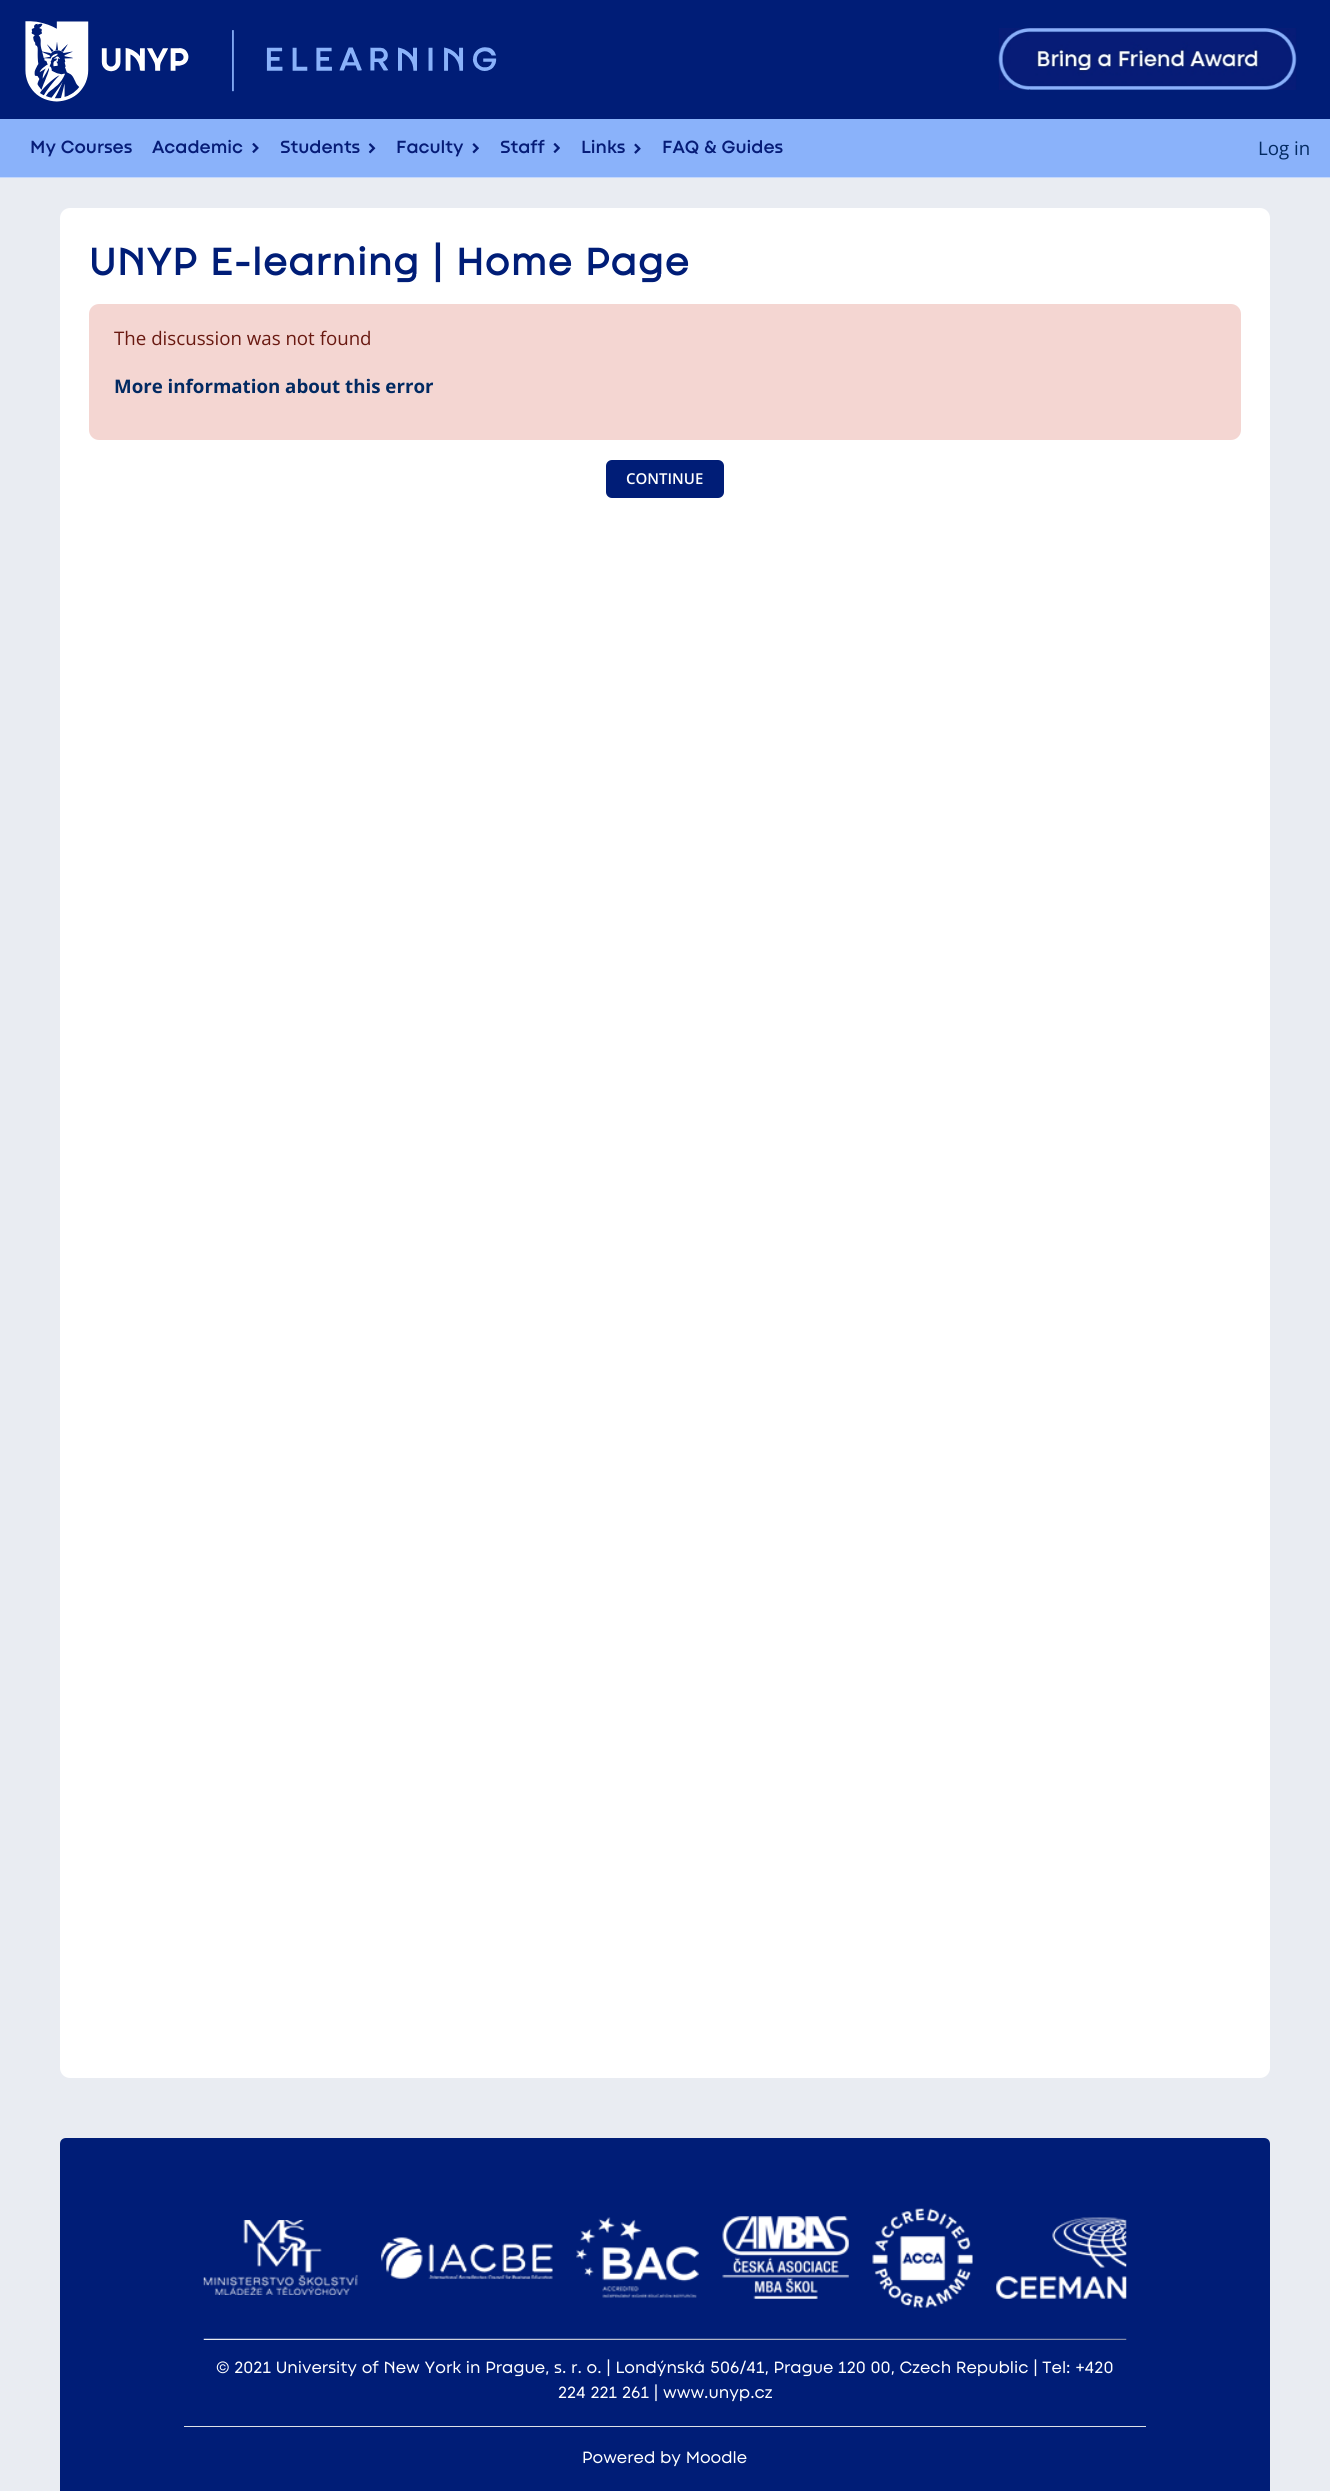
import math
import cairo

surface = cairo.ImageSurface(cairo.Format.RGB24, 1330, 2491)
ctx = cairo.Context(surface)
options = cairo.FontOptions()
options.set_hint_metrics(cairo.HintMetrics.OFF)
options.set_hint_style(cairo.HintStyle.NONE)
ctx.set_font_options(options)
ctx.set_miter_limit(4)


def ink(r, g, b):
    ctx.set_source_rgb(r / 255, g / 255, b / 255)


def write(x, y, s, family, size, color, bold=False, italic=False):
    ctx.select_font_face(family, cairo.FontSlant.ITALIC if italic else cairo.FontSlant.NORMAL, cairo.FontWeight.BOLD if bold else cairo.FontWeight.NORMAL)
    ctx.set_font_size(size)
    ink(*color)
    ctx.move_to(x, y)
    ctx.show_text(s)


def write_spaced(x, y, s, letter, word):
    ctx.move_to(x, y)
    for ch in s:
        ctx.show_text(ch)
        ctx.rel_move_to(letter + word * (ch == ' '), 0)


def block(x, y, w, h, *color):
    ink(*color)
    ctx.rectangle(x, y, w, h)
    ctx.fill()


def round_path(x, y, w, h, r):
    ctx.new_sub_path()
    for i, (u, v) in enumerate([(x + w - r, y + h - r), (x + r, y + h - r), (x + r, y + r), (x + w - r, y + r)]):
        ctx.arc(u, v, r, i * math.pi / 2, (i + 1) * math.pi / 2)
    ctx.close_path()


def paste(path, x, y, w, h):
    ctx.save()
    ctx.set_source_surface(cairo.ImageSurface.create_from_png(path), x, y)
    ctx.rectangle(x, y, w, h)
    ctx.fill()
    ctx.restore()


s1 = dict(family="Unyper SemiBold", size=17.5, color=(6, 28, 119))
s2 = dict(family="Open Sans", size=18.7, color=(2, 42, 98))
s3 = dict(family="Open Sans", size=18.7, color=(105, 25, 17))
s4 = dict(family="Open Sans", size=18.7, color=(2, 42, 98), bold=True)
s5 = dict(family="Open Sans SemiBold", size=15, color=(255, 255, 255))
s6 = dict(family="Unyper", size=16.25, color=(255, 255, 255))

ink(233, 236, 242)
ctx.paint()
block(0, 177, 1330, 1, 255, 255, 255)
paste("pic1.png", 0, 0, 1330, 178)
paste("pic2.png", 998, 28, 299, 62)
write(30, 153, "My Courses", **s1)
write(152, 153, "Academic", **s1)
paste("pic3.png", 252, 143, 7, 10)
write(280, 153, "Students", **s1)
paste("pic4.png", 368, 143, 8, 11)
write(396, 153, "Faculty", **s1)
paste("pic5.png", 472, 143, 7, 11)
write(500, 153, "Staff", **s1)
paste("pic6.png", 553, 143, 7, 10)
write(581, 153, "Links", **s1)
paste("pic7.png", 634, 143, 7, 11)
write(662, 153, "FAQ & Guides", **s1)
write(1258, 155, "Log in", **s2)
ink(255, 255, 255)
round_path(60, 208, 1210, 1870, 10)
ctx.fill()
ctx.select_font_face("Unyper", cairo.FontSlant.NORMAL, cairo.FontWeight.BOLD)
ctx.set_font_size(37.5)
ink(0, 29, 119)
write_spaced(89, 275, "UNYP E-learning | Home Page", 1.25, 0)
ink(244, 214, 210)
round_path(89, 304, 1152, 136, 10)
ctx.fill()
write(114, 345, "The discussion was not found", **s3)
write(114, 393, "More information about this error", **s4)
ink(0, 29, 119)
round_path(606, 460, 118, 38, 6)
ctx.fill()
write(626, 484, "CONTINUE", **s5)
ink(0, 29, 119)
ctx.new_path()
ctx.move_to(66, 2138)
ctx.line_to(1264, 2138)
ctx.curve_to(1267.5, 2138, 1270, 2140.5, 1270, 2144)
ctx.line_to(1270, 2491)
ctx.line_to(60, 2491)
ctx.line_to(60, 2144)
ctx.curve_to(60, 2140.5, 62.5, 2138, 66, 2138)
ctx.close_path()
ctx.fill()
block(184, 2426, 962, 1, 222, 226, 230)
paste("pic8.png", 203, 2338, 924, 2)
paste("pic9.png", 203, 2220, 155, 75)
paste("pic10.png", 381, 2237, 172, 42)
paste("pic11.png", 576, 2217, 123, 81)
paste("pic12.png", 722, 2216, 127, 83)
paste("pic13.png", 872, 2208, 101, 100)
paste("pic14.png", 996, 2217, 131, 82)
write(216, 2373, "© 2021 University of New York in Prague, s. r. o. | Londýnská 506/41, Prague 120 00, Czech Republic | Tel: +420", **s6)
write(558, 2398, "224 221 261 | www.unyp.cz", **s6)
write(582, 2463, "Powered by Moodle", **s6)
surface.write_to_png("screenshot.png")
